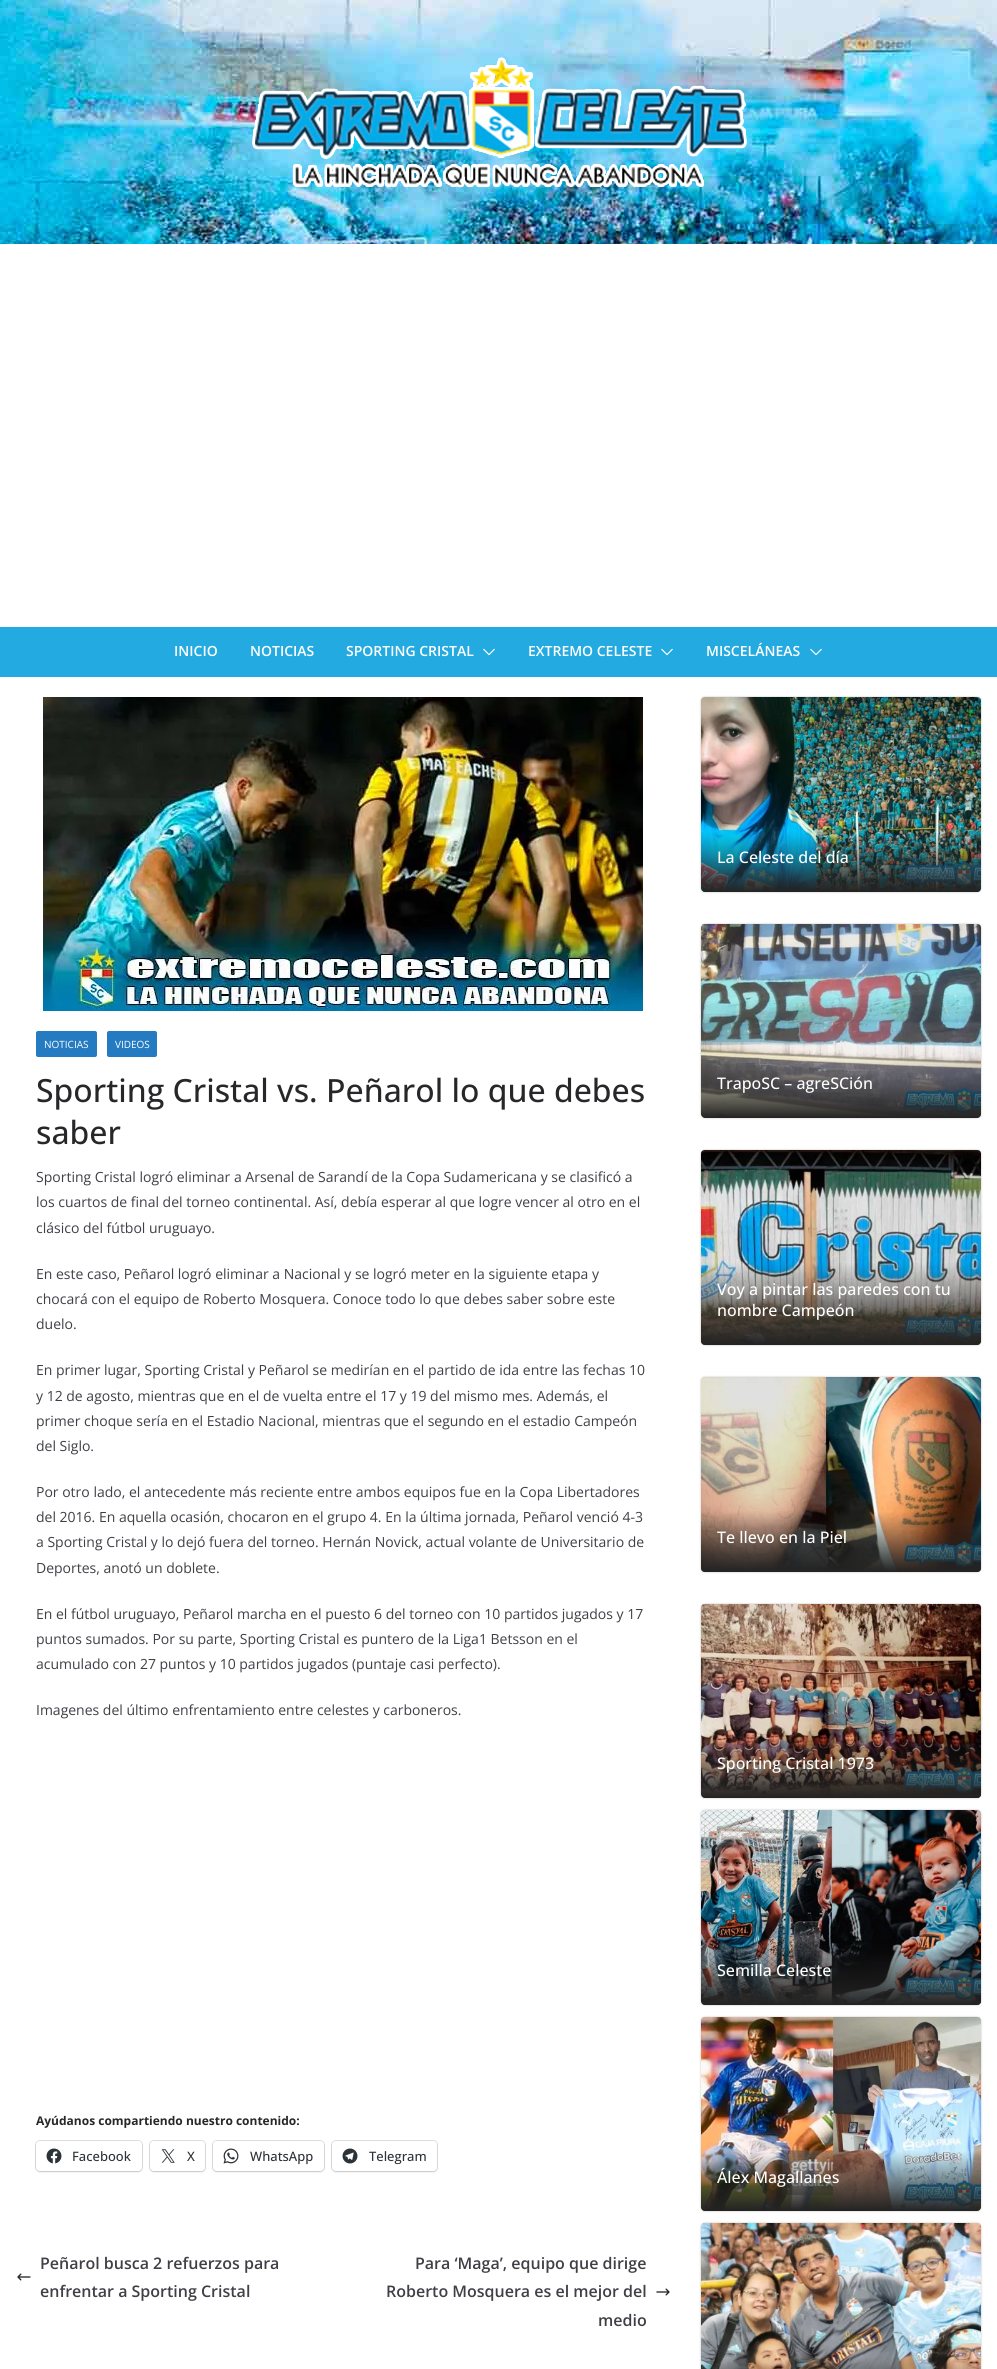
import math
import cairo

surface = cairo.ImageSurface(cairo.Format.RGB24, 997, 2369)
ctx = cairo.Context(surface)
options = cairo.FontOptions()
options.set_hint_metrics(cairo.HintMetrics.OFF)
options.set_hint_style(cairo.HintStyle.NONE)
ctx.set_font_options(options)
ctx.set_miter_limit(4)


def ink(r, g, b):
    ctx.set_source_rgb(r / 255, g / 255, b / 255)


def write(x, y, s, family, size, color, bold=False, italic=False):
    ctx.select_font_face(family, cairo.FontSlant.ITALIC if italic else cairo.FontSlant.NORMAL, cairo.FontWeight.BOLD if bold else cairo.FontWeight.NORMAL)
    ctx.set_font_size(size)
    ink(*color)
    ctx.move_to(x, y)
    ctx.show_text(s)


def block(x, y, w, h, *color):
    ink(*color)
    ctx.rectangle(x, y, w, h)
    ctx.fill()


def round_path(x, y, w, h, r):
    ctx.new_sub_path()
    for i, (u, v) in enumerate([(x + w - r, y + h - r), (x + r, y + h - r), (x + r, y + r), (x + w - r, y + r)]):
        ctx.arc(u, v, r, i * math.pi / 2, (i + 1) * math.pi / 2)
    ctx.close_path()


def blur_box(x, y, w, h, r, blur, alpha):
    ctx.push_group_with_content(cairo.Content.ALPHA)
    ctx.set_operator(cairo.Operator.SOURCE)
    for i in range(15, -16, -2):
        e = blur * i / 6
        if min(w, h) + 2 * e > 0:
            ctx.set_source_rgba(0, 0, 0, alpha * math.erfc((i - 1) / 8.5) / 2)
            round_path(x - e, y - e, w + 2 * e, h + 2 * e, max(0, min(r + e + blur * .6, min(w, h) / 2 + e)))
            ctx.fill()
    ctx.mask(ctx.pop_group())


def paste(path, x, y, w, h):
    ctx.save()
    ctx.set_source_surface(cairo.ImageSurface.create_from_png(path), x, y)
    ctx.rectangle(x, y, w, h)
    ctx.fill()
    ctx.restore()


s1 = dict(family="Open Sans SemiBold", size=14, color=(255, 255, 255))
s2 = dict(family="Open Sans", size=10, color=(255, 255, 255))
s3 = dict(family="Open Sans Medium", size=32, color=(39, 39, 42))
s4 = dict(family="Open Sans", size=14, color=(63, 63, 70))
s5 = dict(family="Open Sans", size=12, color=(39, 39, 42), bold=True)
s6 = dict(family="Open Sans Medium", size=13, color=(44, 51, 56))
s7 = dict(family="Open Sans SemiBold", size=16, color=(63, 63, 70))
s8 = dict(family="Open Sans Medium", size=16, color=(255, 255, 255))

ink(255, 255, 255)
ctx.paint()
paste("pic1.png", 0, 0, 997, 244)
paste("pic2.png", 252, 57, 495, 131)
block(0, 627, 997, 50, 35, 170, 225)
write(174, 656, "INICIO", **s1)
write(250, 656, "NOTICIAS", **s1)
write(346, 656, "SPORTING CRISTAL", **s1)
paste("pic3.png", 483, 648, 12, 8)
write(528, 656, "EXTREMO CELESTE", **s1)
paste("pic3.png", 661, 648, 12, 8)
write(706, 656, "MISCELÁNEAS", **s1)
paste("pic3.png", 810, 648, 12, 8)
paste("pic4.png", 43, 697, 600, 314)
ink(37, 123, 193)
round_path(36, 1031, 61, 26, 2)
ctx.fill()
write(44, 1048, "NOTICIAS", **s2)
ink(37, 123, 193)
round_path(107, 1031, 50, 26, 2)
ctx.fill()
write(115, 1048, "VIDEOS", **s2)
write(36, 1102, "Sporting Cristal vs. Peñarol lo que debes", **s3)
write(36, 1144, "saber", **s3)
write(36, 1182, "Sporting Cristal logró eliminar a Arsenal de Sarandí de la Copa Sudamericana y se clasificó a", **s4)
write(36, 1207, "los cuartos de final del torneo continental. Así, debía esperar al que logre vencer al otro en el", **s4)
write(36, 1233, "clásico del fútbol uruguayo.", **s4)
write(36, 1279, "En este caso, Peñarol logró eliminar a Nacional y se logró meter en la siguiente etapa y", **s4)
write(36, 1304, "chocará con el equipo de Roberto Mosquera. Conoce todo lo que debes saber sobre este", **s4)
write(36, 1329, "duelo.", **s4)
write(36, 1375, "En primer lugar, Sporting Cristal y Peñarol se medirían en el partido de ida entre las fechas 10", **s4)
write(36, 1401, "y 12 de agosto, mientras que en el de vuelta entre el 17 y 19 del mismo mes. Además, el", **s4)
write(36, 1426, "primer choque sería en el Estadio Nacional, mientras que el segundo en el estadio Campeón", **s4)
write(36, 1451, "del Siglo.", **s4)
write(36, 1497, "Por otro lado, el antecedente más reciente entre ambos equipos fue en la Copa Libertadores", **s4)
write(36, 1522, "del 2016. En aquella ocasión, chocaron en el grupo 4. En la última jornada, Peñarol venció 4-3", **s4)
write(36, 1547, "a Sporting Cristal y lo dejó fuera del torneo. Hernán Novick, actual volante de Universitario de", **s4)
write(36, 1573, "Deportes, anotó un doblete.", **s4)
write(36, 1619, "En el fútbol uruguayo, Peñarol marcha en el puesto 6 del torneo con 10 partidos jugados y 17", **s4)
write(36, 1644, "puntos sumados. Por su parte, Sporting Cristal es puntero de la Liga1 Betsson en el", **s4)
write(36, 1669, "acumulado con 27 puntos y 10 partidos jugados (puntaje casi perfecto).", **s4)
write(36, 1715, "Imagenes del último enfrentamiento entre celestes y carboneros.", **s4)
write(36, 2125, "Ayúdanos compartiendo nuestro contenido:", **s5)
round_path(35.5, 2140.5, 107, 31, 4.5)
ink(224, 224, 224)
ctx.set_line_width(1)
ctx.stroke()
ink(0, 0, 0)
blur_box(36, 2142, 106, 30, 4, 1, 0.12)
ink(255, 255, 255)
round_path(36, 2141, 106, 30, 4)
ctx.fill()
paste("pic5.png", 46, 2148, 16, 16)
write(72, 2161, "Facebook", **s6)
round_path(149.5, 2140.5, 56, 31, 4.5)
ink(224, 224, 224)
ctx.stroke()
ink(0, 0, 0)
blur_box(150, 2142, 55, 30, 4, 1, 0.12)
ink(255, 255, 255)
round_path(150, 2141, 55, 30, 4)
ctx.fill()
paste("pic6.png", 161, 2149, 14, 14)
write(187, 2161, "X", **s6)
round_path(212.5, 2140.5, 112, 31, 4.5)
ink(224, 224, 224)
ctx.stroke()
ink(0, 0, 0)
blur_box(213, 2142, 111, 30, 4, 1, 0.12)
ink(255, 255, 255)
round_path(213, 2141, 111, 30, 4)
ctx.fill()
paste("pic7.png", 223, 2148, 16, 16)
write(250, 2161, "WhatsApp", **s6)
round_path(331.5, 2140.5, 106, 31, 4.5)
ink(224, 224, 224)
ctx.stroke()
ink(0, 0, 0)
blur_box(332, 2142, 105, 30, 4, 1, 0.12)
ink(255, 255, 255)
round_path(332, 2141, 105, 30, 4)
ctx.fill()
paste("pic8.png", 342, 2148, 16, 16)
write(369, 2161, "Telegram", **s6)
write(40, 2269, "Peñarol busca 2 refuerzos para", **s7)
paste("pic9.png", 17, 2273, 14, 8)
write(40, 2297, "enfrentar a Sporting Cristal", **s7)
write(415, 2269, "Para ‘Maga’, equipo que dirige", **s7)
write(386, 2297, "Roberto Mosquera es el mejor del", **s7)
paste("pic10.png", 656, 2288, 14, 8)
write(598, 2326, "medio", **s7)
ink(0, 0, 0)
blur_box(701, 697, 280, 195, 4, 1, 0.24)
paste("pic11.png", 701, 697, 280, 195)
gradient = cairo.LinearGradient(841, 831, 841, 892)
gradient.add_color_stop_rgba(0, 0.137, 0.137, 0.137, 0)
gradient.add_color_stop_rgba(1, 0.137, 0.137, 0.137, 1)
ctx.set_source(gradient)
ctx.new_path()
ctx.move_to(701, 831)
ctx.line_to(981, 831)
ctx.line_to(981, 888)
ctx.curve_to(981, 890, 979, 892, 977, 892)
ctx.line_to(705, 892)
ctx.curve_to(703, 892, 701, 890, 701, 888)
ctx.close_path()
ctx.fill()
write(717, 863, "La Celeste del día", **s8)
ink(0, 0, 0)
blur_box(701, 924, 280, 194, 4, 1, 0.24)
paste("pic12.png", 701, 924, 280, 194)
gradient = cairo.LinearGradient(841, 1057, 841, 1118)
gradient.add_color_stop_rgba(0, 0.137, 0.137, 0.137, 0)
gradient.add_color_stop_rgba(1, 0.137, 0.137, 0.137, 1)
ctx.set_source(gradient)
ctx.new_path()
ctx.move_to(701, 1057)
ctx.line_to(981, 1057)
ctx.line_to(981, 1114)
ctx.curve_to(981, 1116, 979, 1118, 977, 1118)
ctx.line_to(705, 1118)
ctx.curve_to(703, 1118, 701, 1116, 701, 1114)
ctx.close_path()
ctx.fill()
write(717, 1089, "TrapoSC – agreSCión", **s8)
ink(0, 0, 0)
blur_box(701, 1150, 280, 195, 4, 1, 0.24)
paste("pic13.png", 701, 1150, 280, 195)
gradient = cairo.LinearGradient(841, 1263, 841, 1345)
gradient.add_color_stop_rgba(0, 0.137, 0.137, 0.137, 0)
gradient.add_color_stop_rgba(1, 0.137, 0.137, 0.137, 1)
ctx.set_source(gradient)
ctx.new_path()
ctx.move_to(701, 1263)
ctx.line_to(981, 1263)
ctx.line_to(981, 1341)
ctx.curve_to(981, 1343, 979, 1345, 977, 1345)
ctx.line_to(705, 1345)
ctx.curve_to(703, 1345, 701, 1343, 701, 1341)
ctx.close_path()
ctx.fill()
write(717, 1295, "Voy a pintar las paredes con tu", **s8)
write(717, 1316, "nombre Campeón", **s8)
ink(0, 0, 0)
blur_box(701, 1377, 280, 195, 4, 1, 0.24)
paste("pic14.png", 701, 1377, 280, 195)
gradient = cairo.LinearGradient(841, 1511, 841, 1572)
gradient.add_color_stop_rgba(0, 0.137, 0.137, 0.137, 0)
gradient.add_color_stop_rgba(1, 0.137, 0.137, 0.137, 1)
ctx.set_source(gradient)
ctx.new_path()
ctx.move_to(701, 1511)
ctx.line_to(981, 1511)
ctx.line_to(981, 1568)
ctx.curve_to(981, 1570, 979, 1572, 977, 1572)
ctx.line_to(705, 1572)
ctx.curve_to(703, 1572, 701, 1570, 701, 1568)
ctx.close_path()
ctx.fill()
write(717, 1543, "Te llevo en la Piel", **s8)
ink(0, 0, 0)
blur_box(701, 1604, 280, 194, 4, 1, 0.24)
paste("pic15.png", 701, 1604, 280, 194)
gradient = cairo.LinearGradient(841, 1737, 841, 1798)
gradient.add_color_stop_rgba(0, 0.137, 0.137, 0.137, 0)
gradient.add_color_stop_rgba(1, 0.137, 0.137, 0.137, 1)
ctx.set_source(gradient)
ctx.new_path()
ctx.move_to(701, 1737)
ctx.line_to(981, 1737)
ctx.line_to(981, 1794)
ctx.curve_to(981, 1796, 979, 1798, 977, 1798)
ctx.line_to(705, 1798)
ctx.curve_to(703, 1798, 701, 1796, 701, 1794)
ctx.close_path()
ctx.fill()
write(717, 1769, "Sporting Cristal 1973", **s8)
ink(0, 0, 0)
blur_box(701, 1810, 280, 195, 4, 1, 0.24)
paste("pic16.png", 701, 1810, 280, 195)
gradient = cairo.LinearGradient(841, 1944, 841, 2005)
gradient.add_color_stop_rgba(0, 0.137, 0.137, 0.137, 0)
gradient.add_color_stop_rgba(1, 0.137, 0.137, 0.137, 1)
ctx.set_source(gradient)
ctx.new_path()
ctx.move_to(701, 1944)
ctx.line_to(981, 1944)
ctx.line_to(981, 2001)
ctx.curve_to(981, 2003, 979, 2005, 977, 2005)
ctx.line_to(705, 2005)
ctx.curve_to(703, 2005, 701, 2003, 701, 2001)
ctx.close_path()
ctx.fill()
write(717, 1976, "Semilla Celeste", **s8)
ink(0, 0, 0)
blur_box(701, 2017, 280, 194, 4, 1, 0.24)
paste("pic17.png", 701, 2017, 280, 194)
gradient = cairo.LinearGradient(841, 2151, 841, 2211)
gradient.add_color_stop_rgba(0, 0.137, 0.137, 0.137, 0)
gradient.add_color_stop_rgba(1, 0.137, 0.137, 0.137, 1)
ctx.set_source(gradient)
ctx.new_path()
ctx.move_to(701, 2151)
ctx.line_to(981, 2151)
ctx.line_to(981, 2207)
ctx.curve_to(981, 2209, 979, 2211, 977, 2211)
ctx.line_to(705, 2211)
ctx.curve_to(703, 2211, 701, 2209, 701, 2207)
ctx.close_path()
ctx.fill()
write(717, 2183, "Álex Magallanes", **s8)
ink(0, 0, 0)
blur_box(701, 2223, 280, 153, 4, 1, 0.24)
paste("pic18.png", 701, 2223, 280, 146)
surface.write_to_png("screenshot.png")
